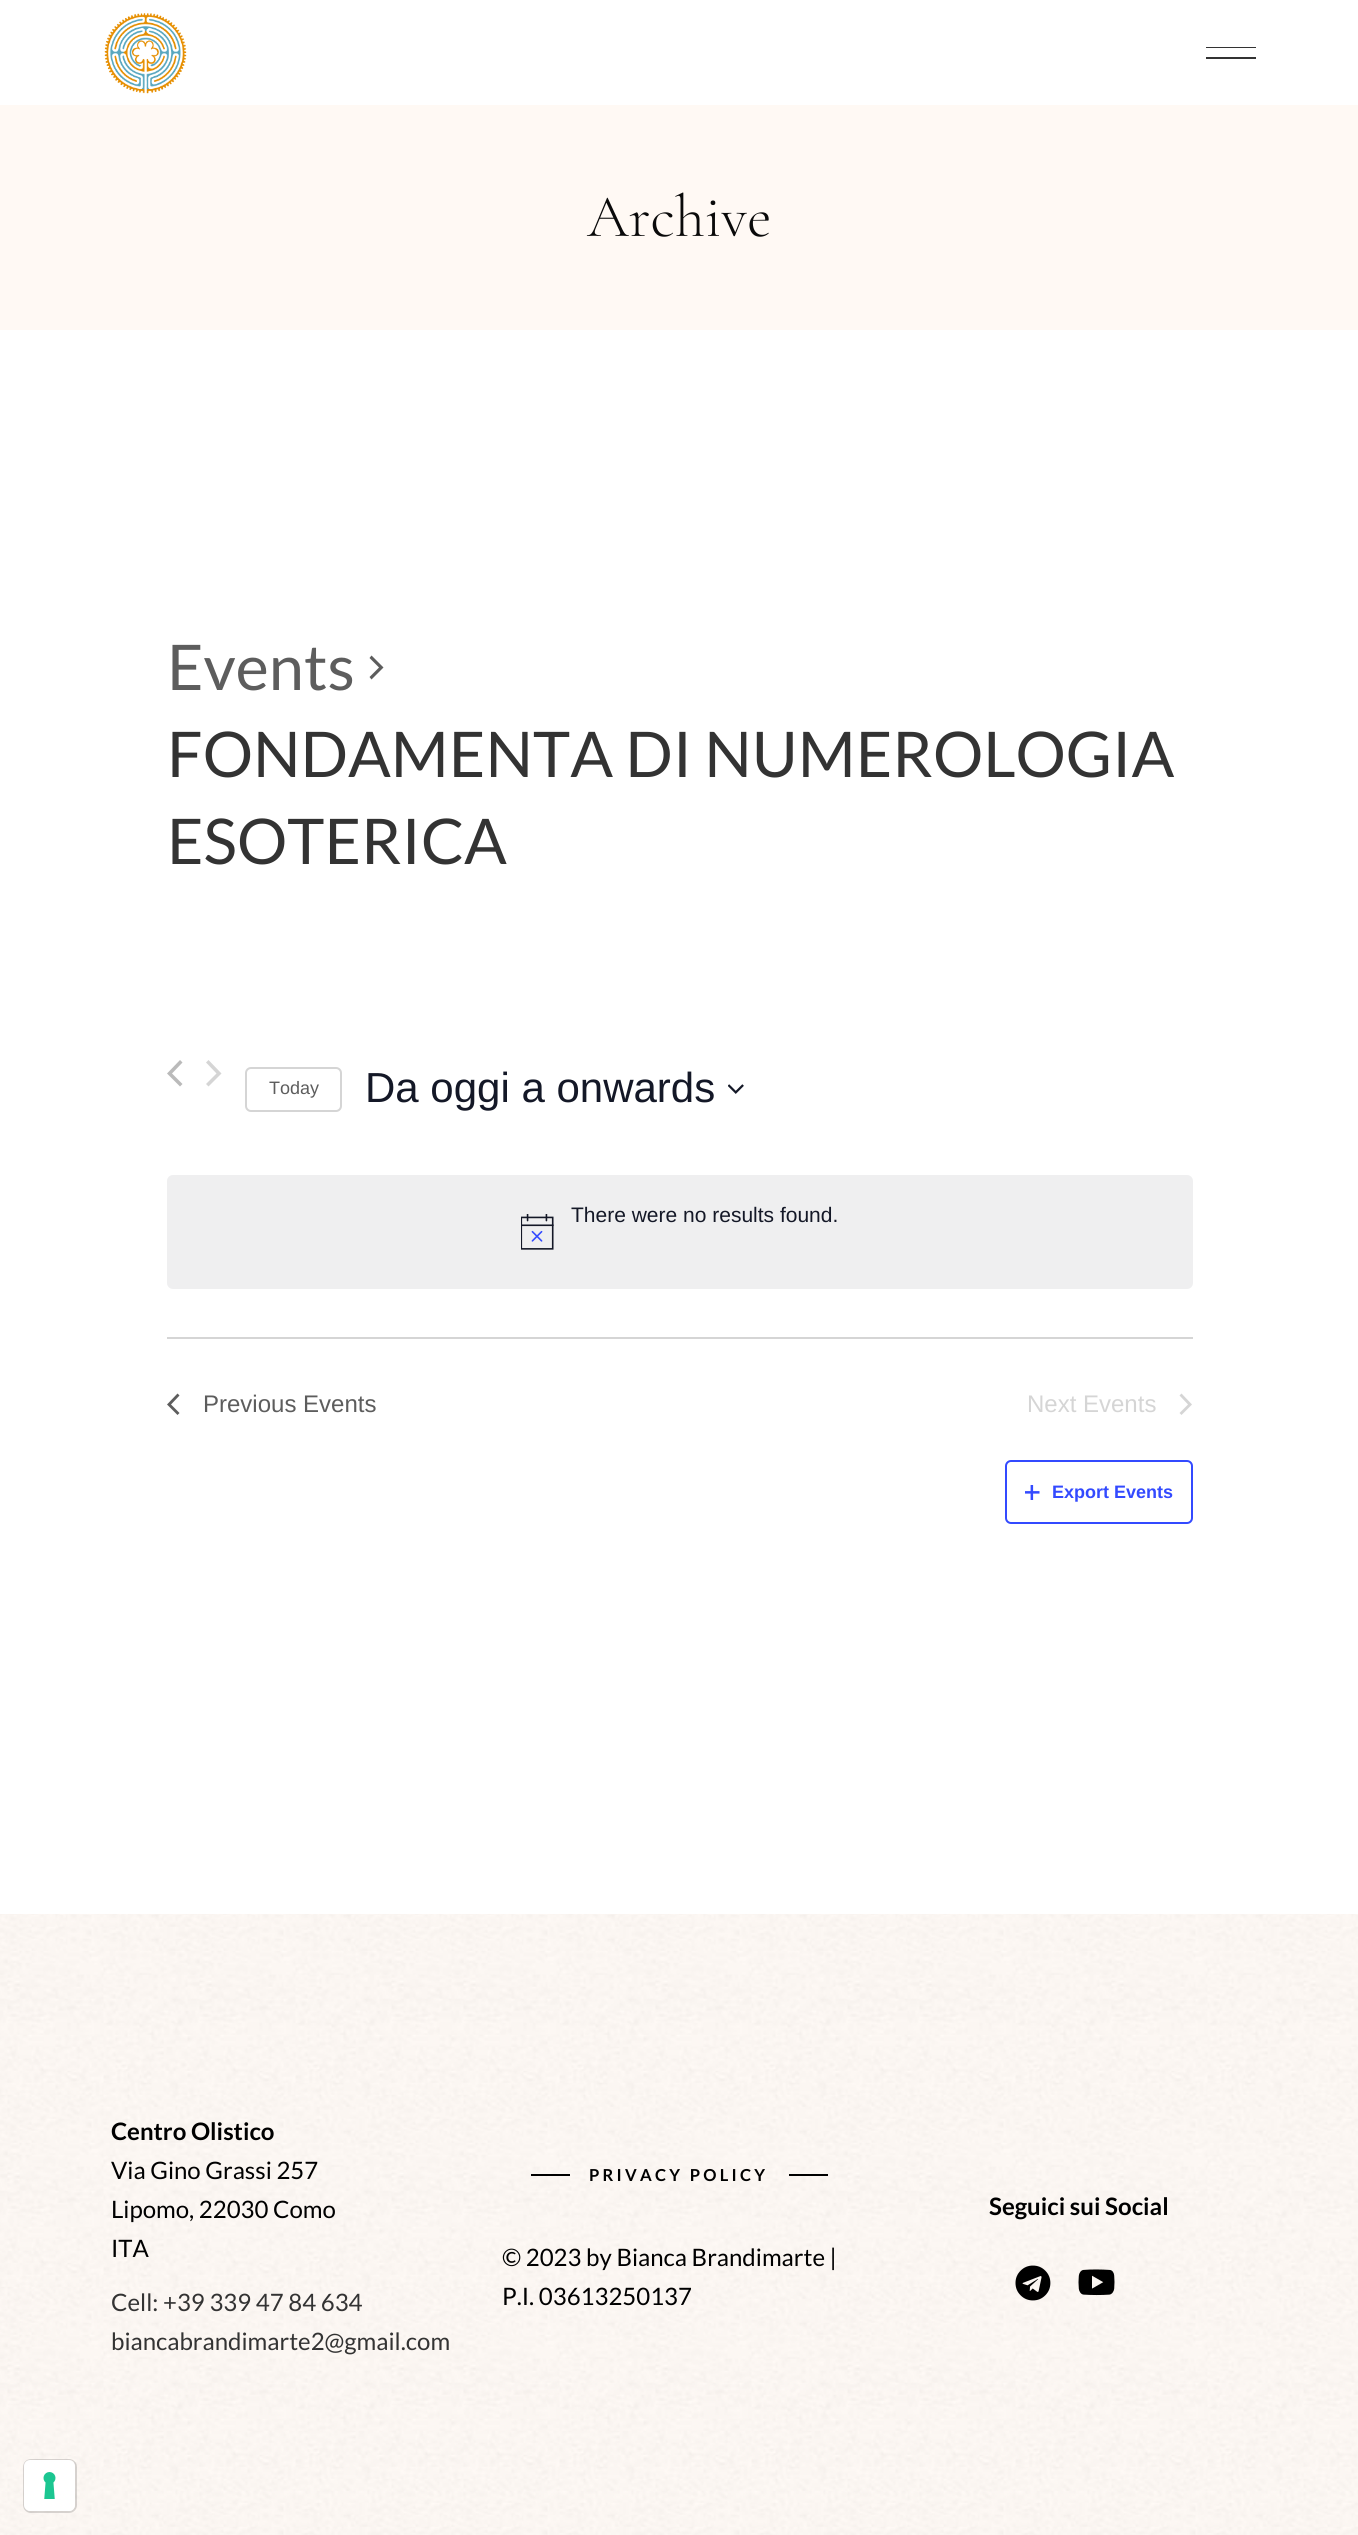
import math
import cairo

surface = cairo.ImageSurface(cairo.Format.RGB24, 1358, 2535)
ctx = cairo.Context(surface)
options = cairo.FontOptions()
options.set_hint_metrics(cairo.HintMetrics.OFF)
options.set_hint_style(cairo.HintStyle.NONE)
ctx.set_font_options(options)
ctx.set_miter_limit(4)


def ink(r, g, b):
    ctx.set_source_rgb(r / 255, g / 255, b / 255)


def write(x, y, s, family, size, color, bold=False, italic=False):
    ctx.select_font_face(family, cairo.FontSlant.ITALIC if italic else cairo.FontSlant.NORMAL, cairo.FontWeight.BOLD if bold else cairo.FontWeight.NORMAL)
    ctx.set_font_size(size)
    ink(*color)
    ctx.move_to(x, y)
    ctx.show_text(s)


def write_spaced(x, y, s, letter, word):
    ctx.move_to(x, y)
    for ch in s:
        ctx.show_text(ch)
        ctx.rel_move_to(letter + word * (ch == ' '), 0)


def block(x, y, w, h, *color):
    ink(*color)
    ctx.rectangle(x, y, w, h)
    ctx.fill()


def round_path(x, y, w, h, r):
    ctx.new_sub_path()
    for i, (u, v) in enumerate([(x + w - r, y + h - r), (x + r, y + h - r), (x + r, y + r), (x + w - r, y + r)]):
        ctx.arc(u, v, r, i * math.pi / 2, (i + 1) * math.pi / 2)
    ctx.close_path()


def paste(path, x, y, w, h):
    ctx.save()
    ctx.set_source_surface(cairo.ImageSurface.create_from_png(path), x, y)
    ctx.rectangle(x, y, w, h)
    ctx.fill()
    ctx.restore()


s1 = dict(family="Cormorant Garamond Light", size=60, color=(10, 10, 10))
s2 = dict(family="Lato", size=63, color=(93, 93, 93))
s3 = dict(family="Lato", size=63, color=(51, 51, 51))
s4 = dict(family="Liberation Sans", size=18, color=(93, 93, 93))
s5 = dict(family="Liberation Sans", size=42, color=(20, 24, 39))
s6 = dict(family="Liberation Sans", size=21, color=(20, 24, 39))
s7 = dict(family="Liberation Sans", size=24, color=(93, 93, 93))
s8 = dict(family="Liberation Sans", size=24, color=(213, 213, 213))
s9 = dict(family="Liberation Sans", size=18, color=(51, 74, 255), bold=True)
s10 = dict(family="Lato", size=24, color=(0, 0, 0), bold=True)
s11 = dict(family="Lato", size=24, color=(0, 0, 0))
s12 = dict(family="Lato", size=24, color=(51, 51, 51))

ink(255, 255, 255)
ctx.paint()
paste("pic1.png", 104, 13, 83, 81)
block(1206, 47, 50, 1, 51, 51, 51)
block(1206, 57, 50, 2, 51, 51, 51)
block(0, 105, 1358, 225, 255, 249, 244)
write(587, 236, "Archive", **s1)
write(167, 690, "Events", **s2)
ctx.new_path()
ctx.move_to(369.5, 658)
ctx.line_to(371.5, 655.5)
ctx.line_to(383.5, 667.5)
ctx.line_to(371.5, 679.5)
ctx.line_to(369.5, 677)
ctx.line_to(379, 667.5)
ctx.close_path()
ctx.fill()
write(167, 777, "FONDAMENTA DI NUMEROLOGIA", **s3)
write(167, 864, "ESOTERICA", **s3)
ink(186, 186, 186)
ctx.new_path()
ctx.move_to(182.5, 1084)
ctx.line_to(180, 1086.5)
ctx.line_to(167, 1073.5)
ctx.line_to(180, 1060)
ctx.line_to(182.5, 1062.5)
ctx.line_to(172, 1073.5)
ctx.close_path()
ctx.fill()
ink(213, 213, 213)
ctx.new_path()
ctx.move_to(206, 1062.5)
ctx.line_to(208.5, 1060)
ctx.line_to(221.5, 1073.5)
ctx.line_to(208.5, 1086.5)
ctx.line_to(206, 1084)
ctx.line_to(216.5, 1073.5)
ctx.close_path()
ctx.fill()
round_path(246, 1068, 95, 43, 5)
ctx.stroke()
write(269, 1094, "Today", **s4)
write(365, 1102, "Da oggi a onwards", **s5)
paste("pic2.png", 728, 1084, 16, 10)
ink(239, 239, 240)
round_path(167, 1175, 1026, 114, 6)
ctx.fill()
paste("pic3.png", 521, 1214, 33, 36)
write(571, 1222, "There were no results found.", **s6)
block(167, 1337, 1026, 2, 213, 213, 213)
ink(93, 93, 93)
ctx.new_path()
ctx.move_to(179.5, 1413)
ctx.line_to(177.5, 1415)
ctx.line_to(167, 1404.5)
ctx.line_to(177.5, 1393.5)
ctx.line_to(179.5, 1395.5)
ctx.line_to(171, 1404.5)
ctx.close_path()
ctx.fill()
write(203, 1412, "Previous Events", **s7)
write(1027, 1412, "Next Events", **s8)
ctx.new_path()
ctx.move_to(1179.5, 1395.5)
ctx.line_to(1181.5, 1393.5)
ctx.line_to(1192, 1404.5)
ctx.line_to(1181.5, 1415)
ctx.line_to(1179.5, 1413)
ctx.line_to(1188, 1404.5)
ctx.close_path()
ctx.fill()
round_path(1006, 1461, 186, 62, 5)
ink(51, 74, 255)
ctx.stroke()
paste("pic4.png", 1025, 1485, 15, 15)
write(1052, 1498, "Export Events", **s9)
paste("pic5.png", 0, 1914, 1358, 621)
write(111, 2140, "Centro Olistico", **s10)
write(111, 2179, "Via Gino Grassi 257", **s11)
write(111, 2218, "Lipomo, 22030 Como", **s11)
write(111, 2257, "ITA", **s11)
write(111, 2311, "Cell: +39 339 47 84 634", **s12)
write(111, 2350, "biancabrandimarte2@gmail.com", **s12)
block(531, 2174, 39, 2, 0, 0, 0)
ctx.select_font_face("Lato", cairo.FontSlant.NORMAL, cairo.FontWeight.BOLD)
ctx.set_font_size(16.5)
write_spaced(589, 2181, "PRIVACY POLICY", 3.25, 0)
block(789, 2174, 39, 2, 0, 0, 0)
write(502, 2266, "© 2023 by Bianca Brandimarte |", **s11)
write(502, 2305, "P.I. 03613250137", **s11)
write(989, 2215, "Seguici sui Social", **s10)
paste("pic6.png", 1015, 2265, 36, 36)
paste("pic7.png", 1078, 2269, 37, 27)
round_path(24, 2460, 52, 52, 7)
ctx.set_source_rgba(0, 0, 0, 0.15)
ctx.stroke()
ink(255, 255, 255)
round_path(24, 2460, 51, 51, 6)
ctx.fill()
paste("pic8.png", 43, 2472, 13, 27)
surface.write_to_png("screenshot.png")
